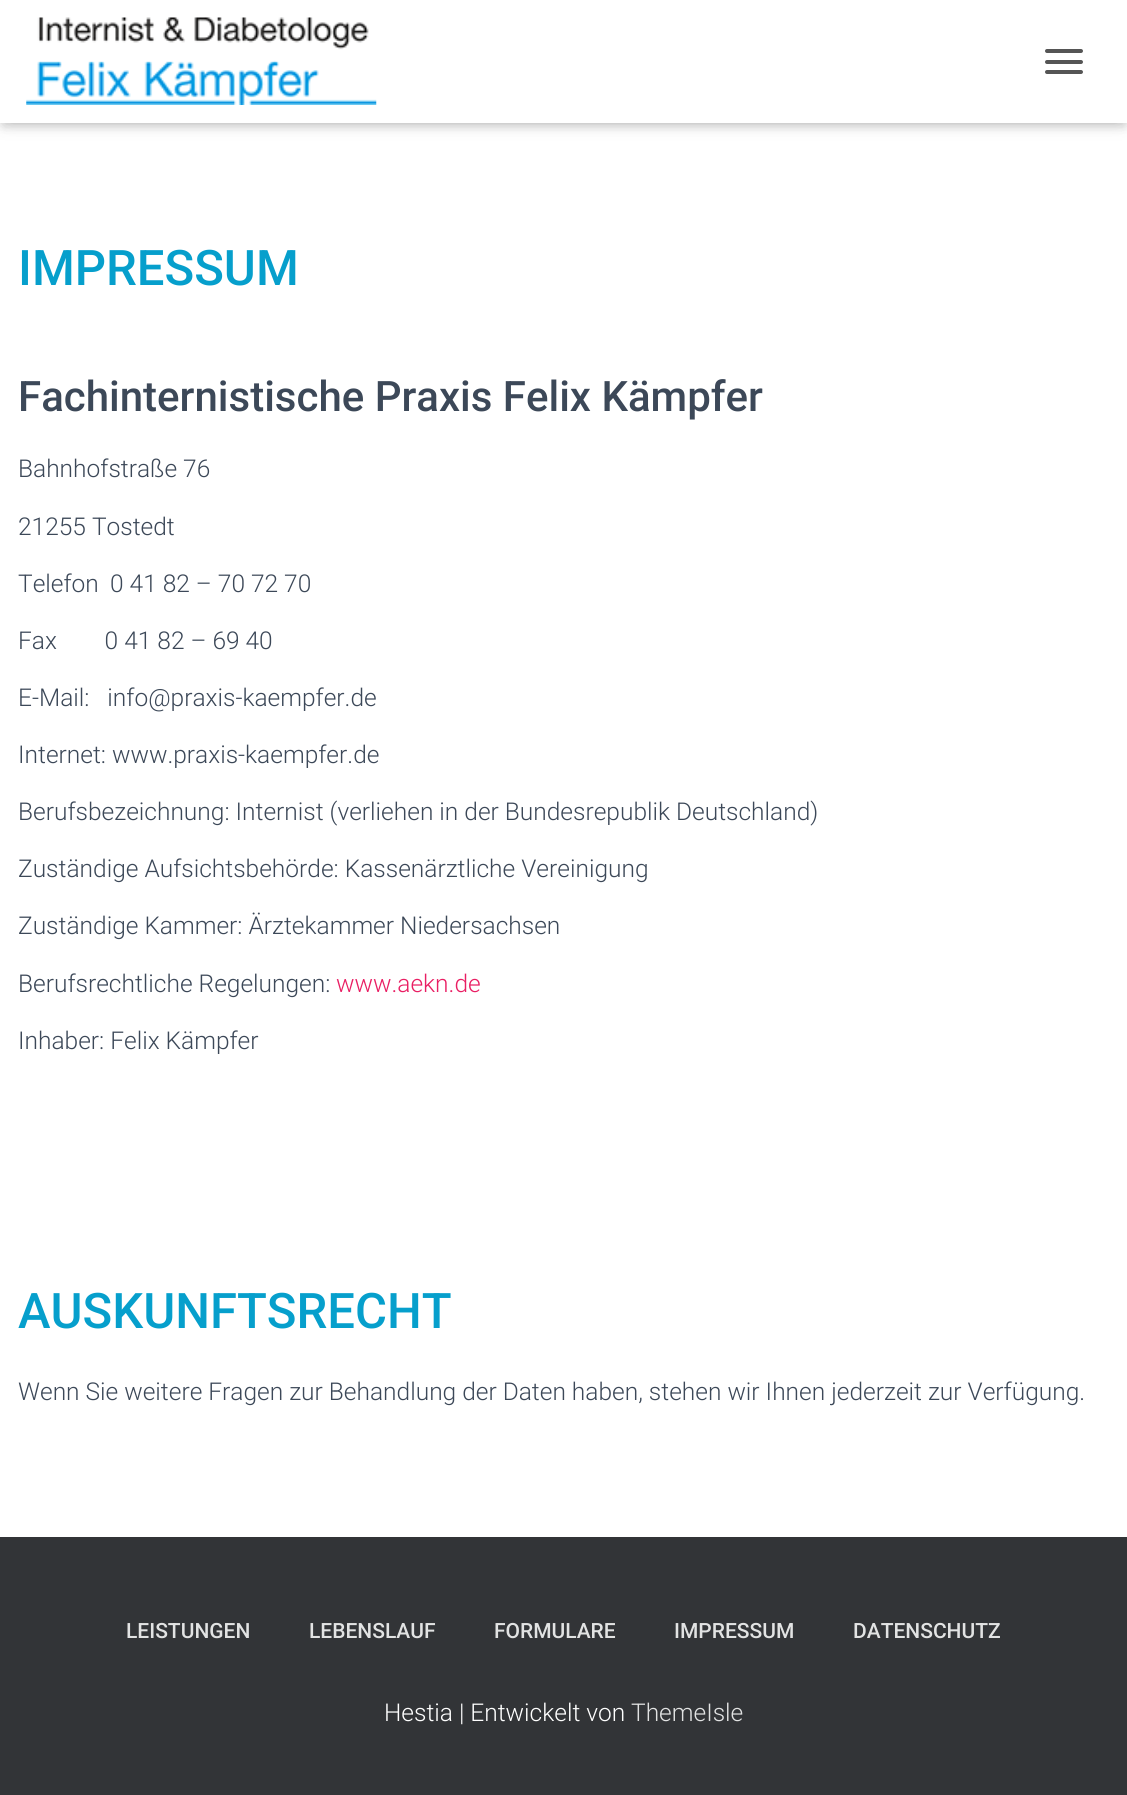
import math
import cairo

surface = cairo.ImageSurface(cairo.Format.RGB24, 1127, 1795)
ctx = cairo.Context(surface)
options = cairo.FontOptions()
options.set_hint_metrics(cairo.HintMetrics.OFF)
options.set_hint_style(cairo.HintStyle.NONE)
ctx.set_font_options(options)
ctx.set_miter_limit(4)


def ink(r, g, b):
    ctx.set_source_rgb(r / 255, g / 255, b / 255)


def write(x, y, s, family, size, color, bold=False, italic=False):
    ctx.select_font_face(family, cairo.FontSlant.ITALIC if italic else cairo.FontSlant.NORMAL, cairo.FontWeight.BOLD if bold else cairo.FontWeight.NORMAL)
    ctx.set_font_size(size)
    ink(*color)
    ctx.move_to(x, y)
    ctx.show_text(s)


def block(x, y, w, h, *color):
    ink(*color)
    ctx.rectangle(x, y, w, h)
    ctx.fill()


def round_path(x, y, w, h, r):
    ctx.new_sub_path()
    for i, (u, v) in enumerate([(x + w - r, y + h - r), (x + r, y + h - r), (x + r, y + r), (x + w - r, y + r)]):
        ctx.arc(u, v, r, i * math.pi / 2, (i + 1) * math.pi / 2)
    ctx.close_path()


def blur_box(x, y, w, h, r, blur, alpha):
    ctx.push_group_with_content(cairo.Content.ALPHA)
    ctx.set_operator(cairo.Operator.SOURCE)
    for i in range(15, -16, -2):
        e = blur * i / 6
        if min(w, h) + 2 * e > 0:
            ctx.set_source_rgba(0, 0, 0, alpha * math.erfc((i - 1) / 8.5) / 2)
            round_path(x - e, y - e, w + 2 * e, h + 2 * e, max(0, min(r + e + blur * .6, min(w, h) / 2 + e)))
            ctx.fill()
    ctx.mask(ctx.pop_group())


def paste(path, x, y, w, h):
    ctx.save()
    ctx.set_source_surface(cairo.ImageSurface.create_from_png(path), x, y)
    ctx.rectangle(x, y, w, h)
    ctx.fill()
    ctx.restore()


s1 = dict(family="Roboto Medium", size=49, color=(6, 159, 204))
s2 = dict(family="Roboto Medium", size=42, color=(60, 72, 88))
s3 = dict(family="Roboto Light", size=24.5, color=(60, 72, 88))
s4 = dict(family="Roboto Light", size=24.5, color=(233, 30, 99))
s5 = dict(family="Roboto Medium", size=21, color=(226, 227, 227))
s6 = dict(family="Roboto Light", size=24.5, color=(255, 255, 255))
s7 = dict(family="Roboto Light", size=24.5, color=(226, 227, 227))

ink(50, 52, 55)
ctx.paint()
block(0, 123, 1127, 1414, 255, 255, 255)
ink(0, 0, 0)
blur_box(4, 11, 1120, 115, 0, 4.5, 0.1)
blur_box(0, 2, 1127, 122, 0, 9, 0.12)
blur_box(11, 12, 1106, 102, 0, 9, 0.42)
block(0, 0, 1127, 123, 255, 255, 255)
paste("pic1.png", 26, 17, 351, 88)
ink(85, 85, 85)
round_path(1045, 49, 38, 4, 2)
ctx.fill()
round_path(1045, 60, 38, 4, 2)
ctx.fill()
round_path(1045, 70, 38, 4, 2)
ctx.fill()
write(18, 285, "IMPRESSUM", **s1)
write(18, 411, "Fachinternistische Praxis Felix Kämpfer", **s2)
write(18, 477, "Bahnhofstraße 76", **s3)
write(18, 535, "21255 Tostedt", **s3)
write(18, 592, "Telefon", **s3)
write(110, 592, "0 41 82 – 70 72 70", **s3)
write(18, 649, "Fax        0 41 82 – 69 40", **s3)
write(18, 706, "E-Mail:   info@praxis-kaempfer.de", **s3)
write(18, 763, "Internet: www.praxis-kaempfer.de", **s3)
write(18, 820, "Berufsbezeichnung: Internist (verliehen in der Bundesrepublik Deutschland)", **s3)
write(18, 877, "Zuständige Aufsichtsbehörde: Kassenärztliche Vereinigung", **s3)
write(18, 934, "Zuständige Kammer: Ärztekammer Niedersachsen", **s3)
write(18, 992, "Berufsrechtliche Regelungen:", **s3)
write(336, 992, "www.aekn.de", **s4)
write(18, 1049, "Inhaber: Felix Kämpfer", **s3)
write(18, 1328, "AUSKUNFTSRECHT", **s1)
write(18, 1400, "Wenn Sie weitere Fragen zur Behandlung der Daten haben, stehen wir Ihnen jederzeit zur Verfügung.", **s3)
write(126, 1638, "LEISTUNGEN", **s5)
write(309, 1638, "LEBENSLAUF", **s5)
write(494, 1638, "FORMULARE", **s5)
write(674, 1638, "IMPRESSUM", **s5)
write(853, 1638, "DATENSCHUTZ", **s5)
write(384, 1721, "Hestia | Entwickelt von", **s6)
write(631, 1721, "ThemeIsle", **s7)
surface.write_to_png("screenshot.png")
